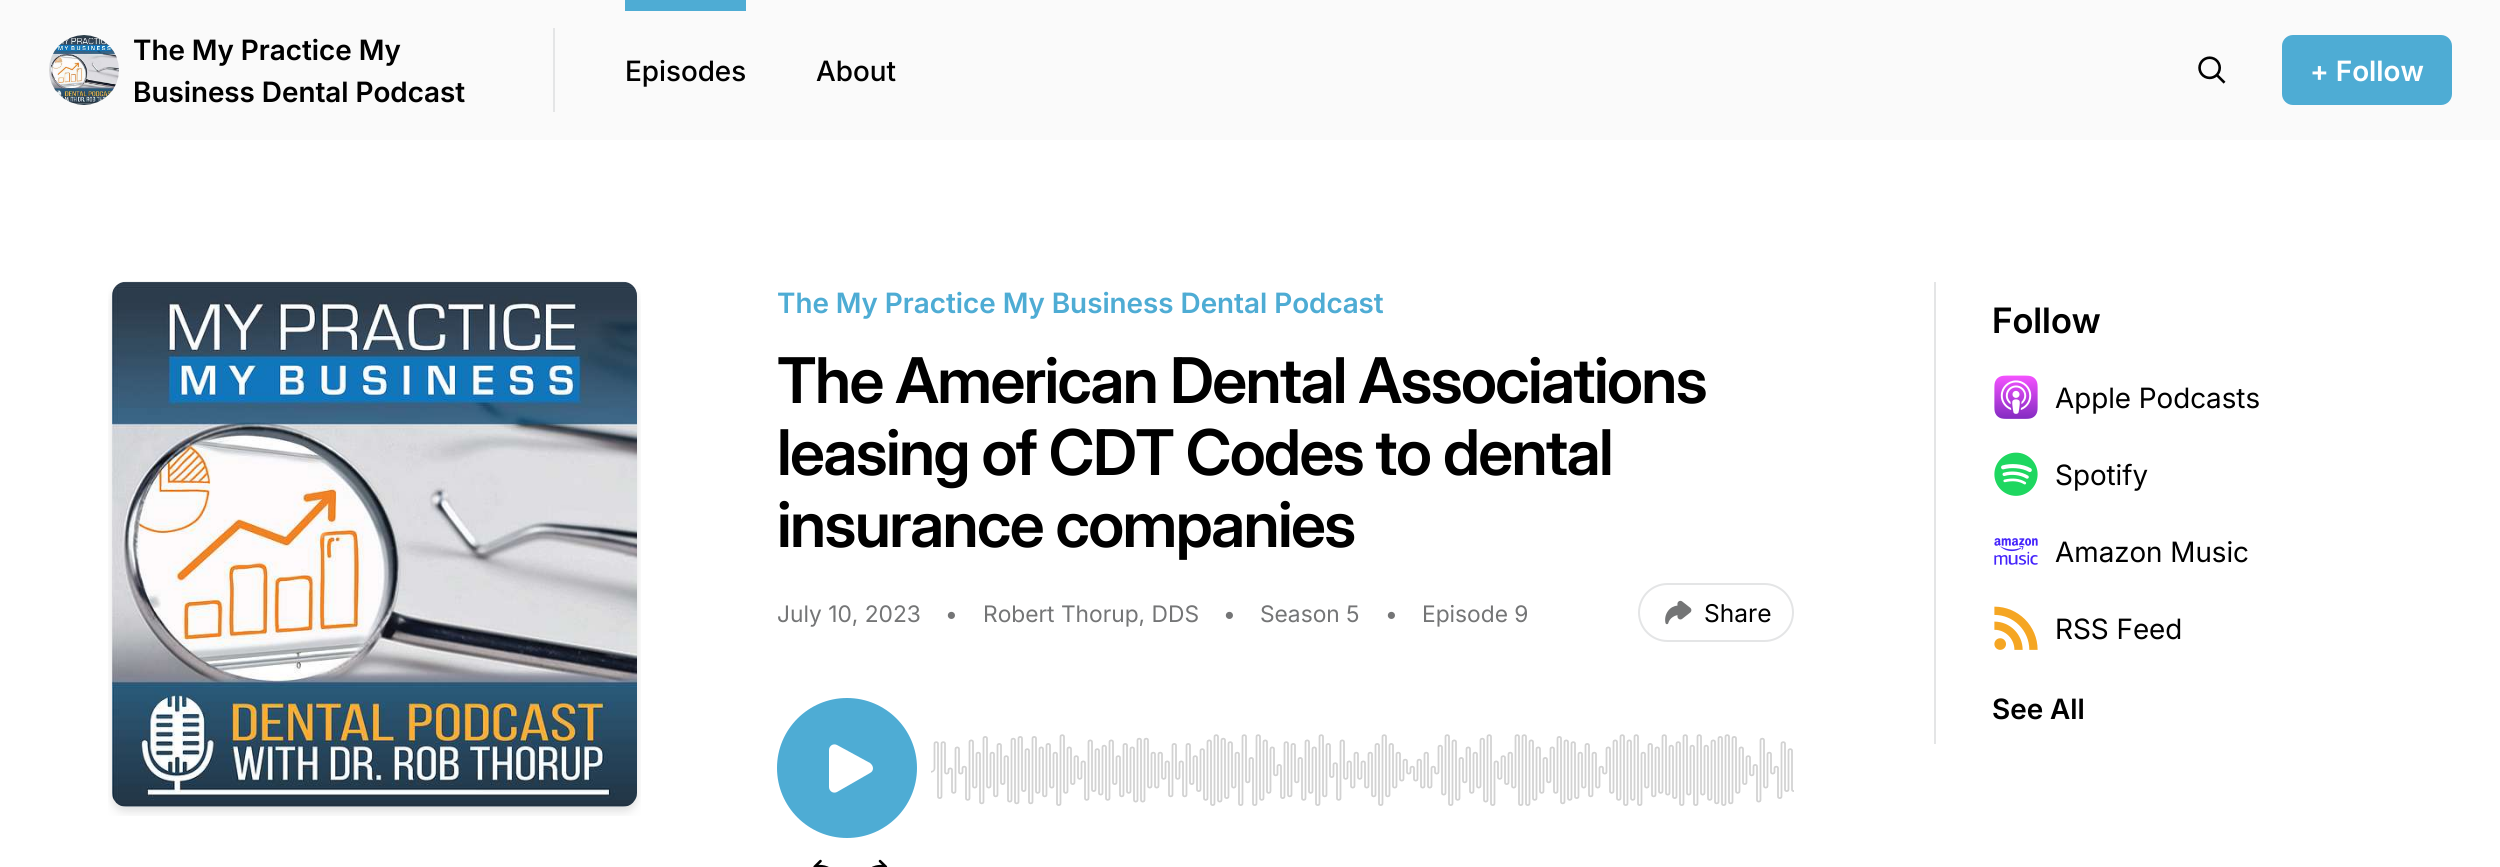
import math
import cairo

surface = cairo.ImageSurface(cairo.Format.RGB24, 2500, 867)
ctx = cairo.Context(surface)
options = cairo.FontOptions()
options.set_hint_metrics(cairo.HintMetrics.OFF)
options.set_hint_style(cairo.HintStyle.NONE)
ctx.set_font_options(options)
ctx.set_miter_limit(4)


def ink(r, g, b):
    ctx.set_source_rgb(r / 255, g / 255, b / 255)


def write(x, y, s, family, size, color, bold=False, italic=False):
    ctx.select_font_face(family, cairo.FontSlant.ITALIC if italic else cairo.FontSlant.NORMAL, cairo.FontWeight.BOLD if bold else cairo.FontWeight.NORMAL)
    ctx.set_font_size(size)
    ink(*color)
    ctx.move_to(x, y)
    ctx.show_text(s)


def write_spaced(x, y, s, letter, word):
    ctx.move_to(x, y)
    for ch in s:
        ctx.show_text(ch)
        ctx.rel_move_to(letter + word * (ch == ' '), 0)


def block(x, y, w, h, *color):
    ink(*color)
    ctx.rectangle(x, y, w, h)
    ctx.fill()


def round_path(x, y, w, h, r):
    ctx.new_sub_path()
    for i, (u, v) in enumerate([(x + w - r, y + h - r), (x + r, y + h - r), (x + r, y + r), (x + w - r, y + r)]):
        ctx.arc(u, v, r, i * math.pi / 2, (i + 1) * math.pi / 2)
    ctx.close_path()


def paste(path, x, y, w, h):
    ctx.save()
    ctx.set_source_surface(cairo.ImageSurface.create_from_png(path), x, y)
    ctx.rectangle(x, y, w, h)
    ctx.fill()
    ctx.restore()


s1 = dict(family="Inter SemiBold", size=28, color=(0, 0, 0))
s2 = dict(family="Inter Medium", size=28, color=(0, 0, 0))
s3 = dict(family="Inter SemiBold", size=28, color=(255, 255, 255))
s4 = dict(family="Inter SemiBold", size=28, color=(78, 172, 212))
s5 = dict(family="Inter", size=22.75, color=(116, 117, 118))
s6 = dict(family="Inter", size=24.5, color=(0, 0, 0))
s7 = dict(family="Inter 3 SemiBold", size=35, color=(0, 0, 0))
s8 = dict(family="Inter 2", size=28, color=(0, 0, 0))

ink(255, 255, 255)
ctx.paint()
block(0, 0, 2500, 140, 250, 250, 250)
block(553, 28, 2, 84, 228, 229, 230)
paste("pic1.png", 49, 35, 70, 70)
write(133, 60, "The My Practice My", **s1)
write(133, 102, "Business Dental Podcast", **s1)
block(625, 0, 121, 11, 78, 172, 212)
write(625, 81, "Episodes", **s2)
write(816, 81, "About", **s2)
paste("pic2.png", 2198, 56, 28, 28)
ink(78, 172, 212)
round_path(2282, 35, 170, 70, 11)
ctx.fill()
write(2310, 81, "+ Follow", **s3)
paste("pic3.png", 108, 281, 533, 535)
write(777, 313, "The My Practice My Business Dental Podcast", **s4)
ctx.select_font_face("Inter 2 SemiBold")
ctx.set_font_size(63)
ink(0, 0, 0)
write_spaced(777, 403, "The American Dental Associations", -1.6, 0)
write_spaced(777, 475, "leasing of CDT Codes to dental", -1.6, 0)
write_spaced(777, 547, "insurance companies", -1.6, 0)
write(777, 622, "July 10, 2023", **s5)
write(945, 622, "•", **s5)
write(983, 622, "Robert Thorup, DDS", **s5)
write(1223, 622, "•", **s5)
write(1260, 622, "Season 5", **s5)
write(1385, 622, "•", **s5)
write(1422, 622, "Episode 9", **s5)
round_path(1639, 584, 154, 57, 28.5)
ink(228, 229, 230)
ctx.stroke()
paste("pic4.png", 1665, 600, 27, 25)
write(1704, 622, "Share", **s6)
ink(78, 172, 212)
ctx.new_path()
ctx.arc(847, 768, 70, 0, 2 * math.pi)
ctx.fill()
ink(255, 255, 255)
ctx.set_fill_rule(cairo.FillRule.EVEN_ODD)
ctx.new_path()
ctx.move_to(829, 750)
ctx.curve_to(829, 746, 833, 743, 837, 745)
ctx.line_to(870, 763)
ctx.curve_to(874, 766, 874, 771, 870, 773)
ctx.line_to(837, 792)
ctx.curve_to(833, 794, 829, 791, 829, 787)
ctx.close_path()
ctx.fill()
paste("pic5.png", 931, 734, 863, 72)
paste("pic6.png", 813, 859, 16, 8)
paste("pic7.png", 872, 859, 16, 8)
block(1934, 282, 2, 462, 228, 229, 230)
write(1992, 333, "Follow", **s7)
paste("pic8.png", 1994, 375, 44, 44)
write(2055, 408, "Apple Podcasts", **s8)
paste("pic9.png", 1994, 452, 44, 44)
write(2055, 485, "Spotify", **s8)
paste("pic10.png", 1994, 538, 44, 27)
write(2055, 562, "Amazon Music", **s8)
paste("pic11.png", 1994, 606, 44, 44)
write(2055, 639, "RSS Feed", **s8)
write(1992, 719, "See All", **s1)
surface.write_to_png("screenshot.png")
